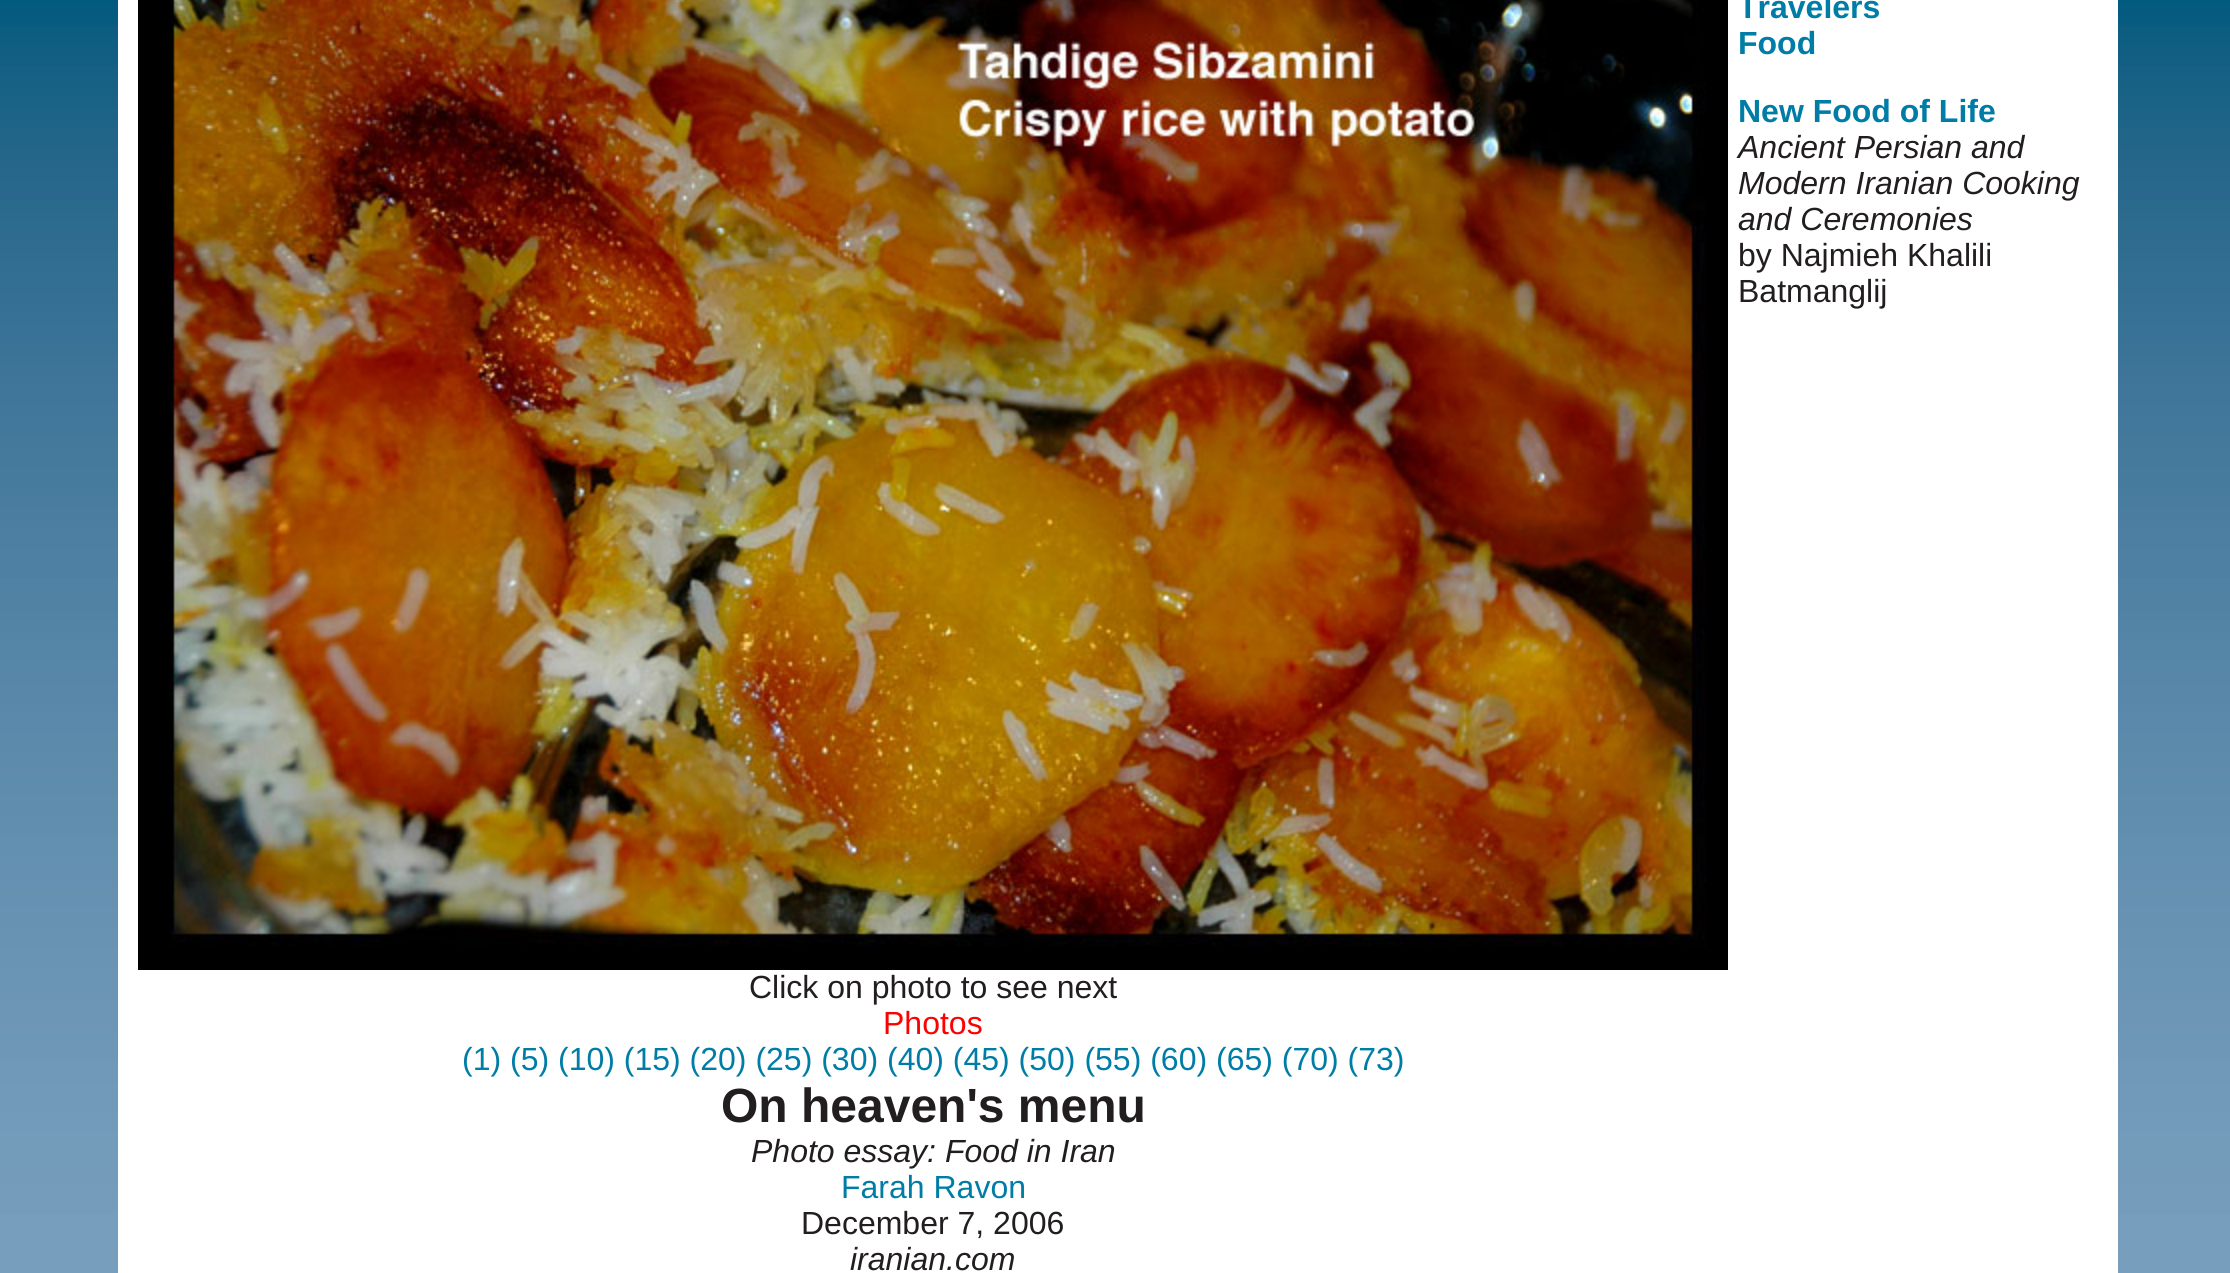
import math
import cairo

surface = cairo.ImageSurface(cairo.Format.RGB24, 2230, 1273)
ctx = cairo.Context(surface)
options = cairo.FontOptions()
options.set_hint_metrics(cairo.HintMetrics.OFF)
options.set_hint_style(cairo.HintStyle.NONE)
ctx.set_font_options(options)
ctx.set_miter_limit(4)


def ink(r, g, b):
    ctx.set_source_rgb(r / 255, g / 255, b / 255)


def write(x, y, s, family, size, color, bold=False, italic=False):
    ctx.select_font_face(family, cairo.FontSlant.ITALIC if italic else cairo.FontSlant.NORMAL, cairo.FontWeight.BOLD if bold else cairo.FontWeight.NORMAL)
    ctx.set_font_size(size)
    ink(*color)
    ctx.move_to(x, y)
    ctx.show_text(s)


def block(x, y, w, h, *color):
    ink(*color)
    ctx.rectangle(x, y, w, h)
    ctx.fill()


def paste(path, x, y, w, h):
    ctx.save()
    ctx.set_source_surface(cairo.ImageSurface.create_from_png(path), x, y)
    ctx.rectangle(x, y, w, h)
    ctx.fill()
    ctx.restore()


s1 = dict(family="Liberation Sans", size=32, color=(0, 125, 166), bold=True)
s2 = dict(family="Liberation Sans", size=32, color=(34, 30, 31), italic=True)
s3 = dict(family="Liberation Sans", size=32, color=(34, 30, 31))
s4 = dict(family="Liberation Sans", size=32, color=(255, 0, 0))
s5 = dict(family="Liberation Sans", size=32, color=(0, 125, 166))
s6 = dict(family="Liberation Sans", size=48, color=(34, 30, 31), bold=True)

ink(255, 255, 255)
ctx.paint()
paste("pic1.png", 0, 0, 2230, 1273)
block(118, 0, 2000, 1273, 255, 255, 255)
write(1738, 18, "Travelers", **s1)
write(1738, 54, "Food", **s1)
write(1738, 122, "New Food of Life", **s1)
write(1738, 158, "Ancient Persian and", **s2)
write(1738, 194, "Modern Iranian Cooking", **s2)
write(1738, 230, "and Ceremonies", **s2)
write(1738, 266, "by Najmieh Khalili", **s3)
write(1738, 302, "Batmanglij", **s3)
paste("pic2.png", 138, 0, 1590, 970)
write(749, 998, "Click on photo to see next", **s3)
write(883, 1034, "Photos", **s4)
write(462, 1070, "(1) (5) (10) (15) (20) (25) (30) (40) (45) (50) (55) (60) (65) (70) (73)", **s5)
write(721, 1122, "On heaven's menu", **s6)
write(751, 1162, "Photo essay: Food in Iran", **s2)
write(841, 1198, "Farah Ravon", **s5)
write(801, 1234, "December 7, 2006", **s3)
write(850, 1270, "iranian.com", **s2)
surface.write_to_png("screenshot.png")
